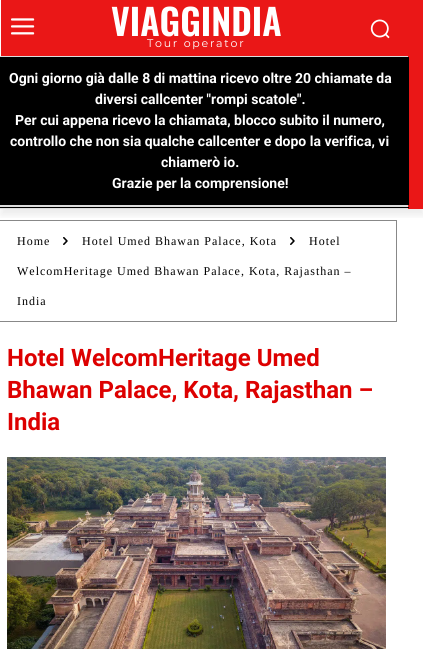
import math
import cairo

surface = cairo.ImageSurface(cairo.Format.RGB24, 423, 649)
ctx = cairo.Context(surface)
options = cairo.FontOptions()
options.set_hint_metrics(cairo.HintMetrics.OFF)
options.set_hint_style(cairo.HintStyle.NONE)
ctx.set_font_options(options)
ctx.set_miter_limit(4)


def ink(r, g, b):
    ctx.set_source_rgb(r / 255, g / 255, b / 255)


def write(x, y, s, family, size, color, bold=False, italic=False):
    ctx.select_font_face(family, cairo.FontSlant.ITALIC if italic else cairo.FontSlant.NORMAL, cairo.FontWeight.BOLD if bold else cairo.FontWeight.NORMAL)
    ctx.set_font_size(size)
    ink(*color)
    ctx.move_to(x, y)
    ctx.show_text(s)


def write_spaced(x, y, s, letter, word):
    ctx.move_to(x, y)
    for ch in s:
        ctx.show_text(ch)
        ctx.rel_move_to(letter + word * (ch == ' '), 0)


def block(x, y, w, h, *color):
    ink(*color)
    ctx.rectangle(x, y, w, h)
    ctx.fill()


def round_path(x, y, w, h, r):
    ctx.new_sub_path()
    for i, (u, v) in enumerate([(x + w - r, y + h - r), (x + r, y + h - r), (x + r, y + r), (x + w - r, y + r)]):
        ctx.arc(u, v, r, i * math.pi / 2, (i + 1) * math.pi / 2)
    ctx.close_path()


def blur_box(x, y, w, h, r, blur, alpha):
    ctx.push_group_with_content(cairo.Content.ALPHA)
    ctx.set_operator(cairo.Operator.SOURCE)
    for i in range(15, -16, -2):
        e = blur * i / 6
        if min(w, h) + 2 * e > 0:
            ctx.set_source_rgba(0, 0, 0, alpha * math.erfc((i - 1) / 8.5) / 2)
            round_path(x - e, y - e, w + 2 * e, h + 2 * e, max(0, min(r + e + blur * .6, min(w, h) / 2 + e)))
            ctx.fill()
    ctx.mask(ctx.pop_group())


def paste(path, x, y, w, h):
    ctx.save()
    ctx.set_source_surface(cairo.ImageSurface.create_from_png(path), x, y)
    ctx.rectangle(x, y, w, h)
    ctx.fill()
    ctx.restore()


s1 = dict(family="Oswald SemiBold", size=36, color=(255, 255, 255))
s2 = dict(family="Roboto", size=14, color=(255, 255, 255), bold=True)
s3 = dict(family="Roboto", size=24, color=(221, 0, 0), bold=True)

ink(255, 255, 255)
ctx.paint()
block(1, 0, 422, 209, 234, 23, 23)
paste("pic1.png", 11, 18, 24, 17)
paste("pic2.png", 370, 19, 20, 20)
block(0, 56, 408, 1, 221, 221, 221)
block(0, 205, 408, 2, 221, 221, 221)
block(0, 57, 409, 148, 0, 0, 0)
block(0, 208, 408, 1, 221, 221, 221)
block(0, 207, 409, 1, 0, 0, 0)
ctx.rectangle(-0.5, 220.5, 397, 101)
ink(136, 136, 136)
ctx.set_line_width(1)
ctx.stroke()
ctx.save()
ctx.rectangle(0, 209, 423, 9)
ctx.clip()
ink(0, 0, 0)
blur_box(1, 6, 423, 209, 0, 4, 0.08)
ctx.restore()
write(111, 36, "VIAGGINDIA", **s1)
ctx.select_font_face("Montserrat")
ctx.set_font_size(11)
write_spaced(147, 47, "Tour operator", 1.75, 0)
write(9, 83, "Ogni giorno già dalle 8 di mattina ricevo oltre 20 chiamate da", **s2)
write(95, 104, "diversi callcenter \"rompi scatole\".", **s2)
write(15, 125, "Per cui appena ricevo la chiamata, blocco subito il numero,", **s2)
write(10, 146, "controllo che non sia qualche callcenter e dopo la verifica, vi", **s2)
write(161, 167, "chiamerò io.", **s2)
write(112, 188, "Grazie per la comprensione!", **s2)
ctx.select_font_face("Liberation Serif")
ctx.set_font_size(12)
ink(0, 0, 0)
write_spaced(17, 245, "Home", 1, 0)
paste("pic3.png", 63, 237, 5, 8)
write_spaced(82, 245, "Hotel Umed Bhawan Palace, Kota", 1, 0)
paste("pic3.png", 290, 237, 5, 8)
write_spaced(309, 245, "Hotel", 1, 0)
write_spaced(17, 275, "WelcomHeritage Umed Bhawan Palace, Kota, Rajasthan –", 1, 0)
write_spaced(17, 305, "India", 1, 0)
write(7, 366, "Hotel WelcomHeritage Umed", **s3)
write(7, 398, "Bhawan Palace, Kota, Rajasthan –", **s3)
write(7, 430, "India", **s3)
paste("pic4.png", 7, 457, 379, 192)
surface.write_to_png("screenshot.png")
